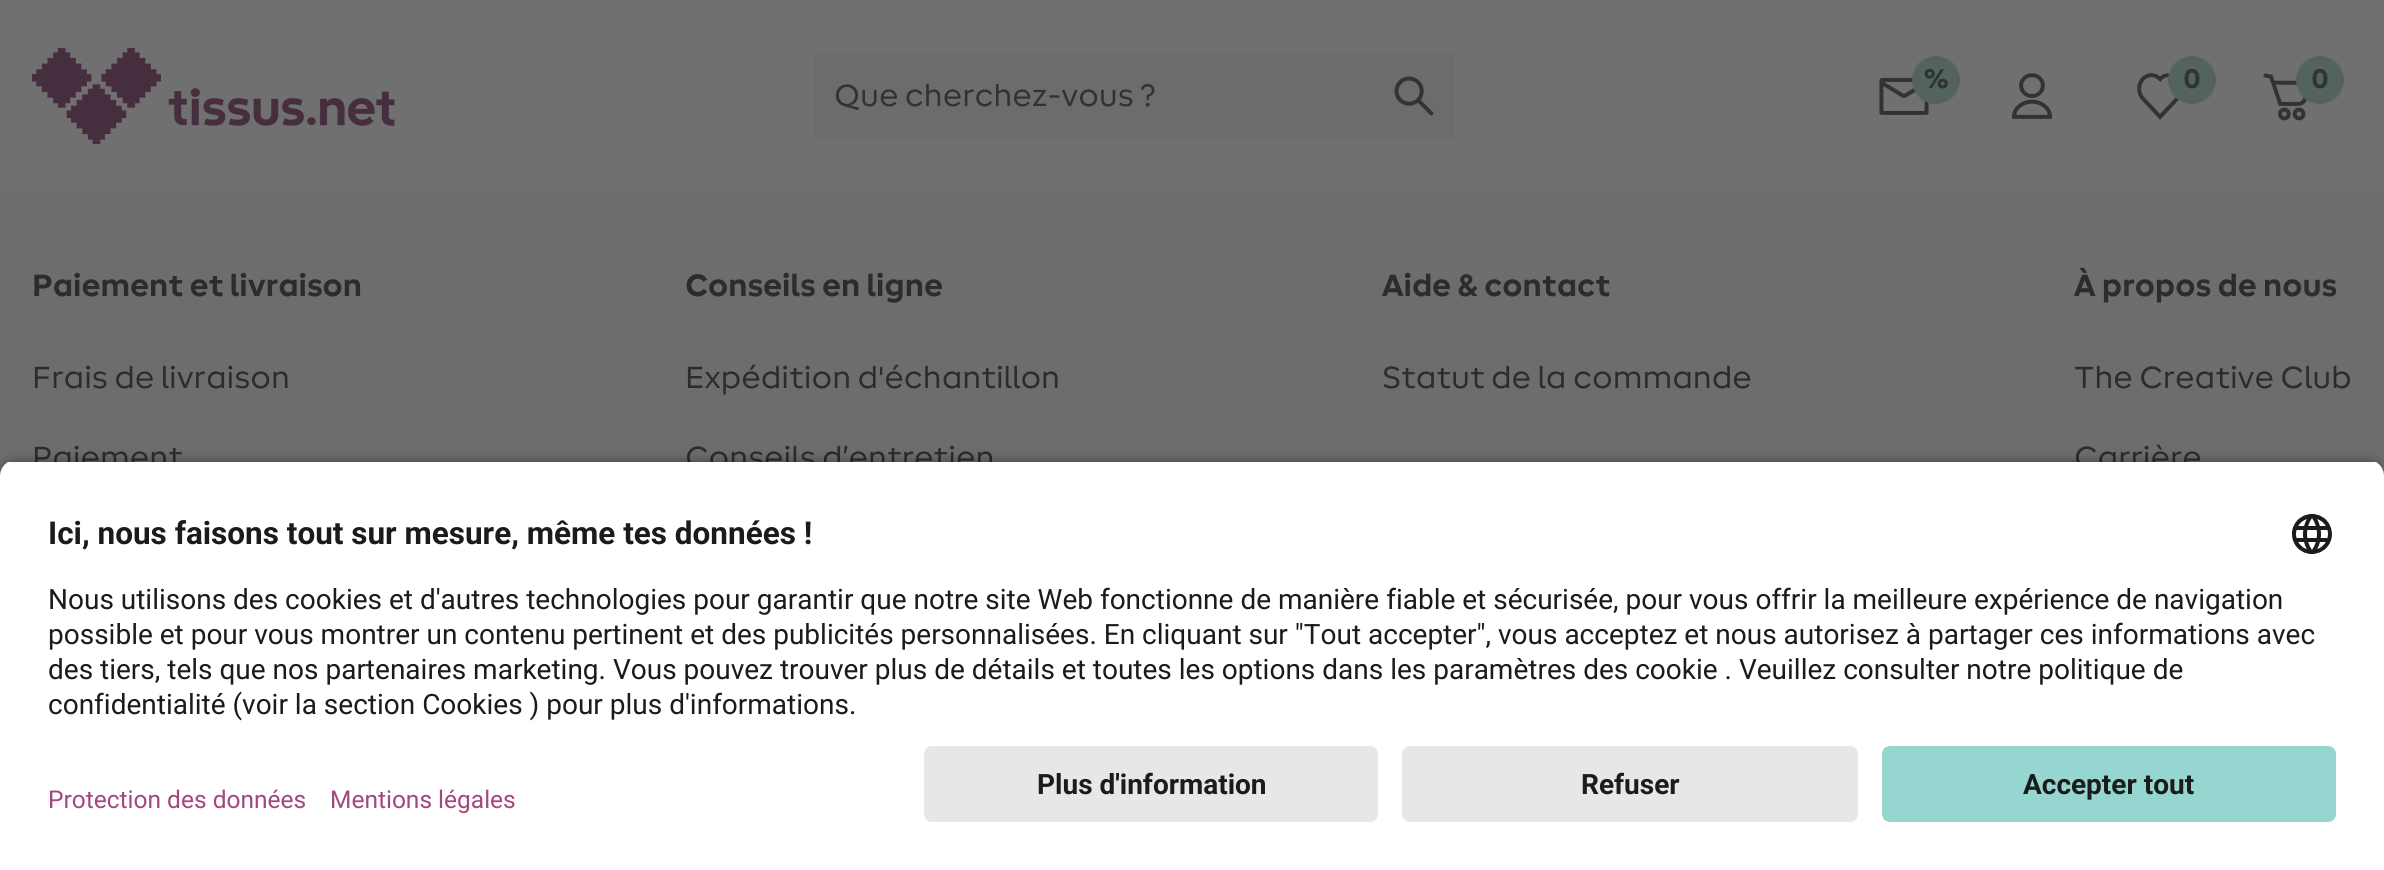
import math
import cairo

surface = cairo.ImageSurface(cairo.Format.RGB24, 2384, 870)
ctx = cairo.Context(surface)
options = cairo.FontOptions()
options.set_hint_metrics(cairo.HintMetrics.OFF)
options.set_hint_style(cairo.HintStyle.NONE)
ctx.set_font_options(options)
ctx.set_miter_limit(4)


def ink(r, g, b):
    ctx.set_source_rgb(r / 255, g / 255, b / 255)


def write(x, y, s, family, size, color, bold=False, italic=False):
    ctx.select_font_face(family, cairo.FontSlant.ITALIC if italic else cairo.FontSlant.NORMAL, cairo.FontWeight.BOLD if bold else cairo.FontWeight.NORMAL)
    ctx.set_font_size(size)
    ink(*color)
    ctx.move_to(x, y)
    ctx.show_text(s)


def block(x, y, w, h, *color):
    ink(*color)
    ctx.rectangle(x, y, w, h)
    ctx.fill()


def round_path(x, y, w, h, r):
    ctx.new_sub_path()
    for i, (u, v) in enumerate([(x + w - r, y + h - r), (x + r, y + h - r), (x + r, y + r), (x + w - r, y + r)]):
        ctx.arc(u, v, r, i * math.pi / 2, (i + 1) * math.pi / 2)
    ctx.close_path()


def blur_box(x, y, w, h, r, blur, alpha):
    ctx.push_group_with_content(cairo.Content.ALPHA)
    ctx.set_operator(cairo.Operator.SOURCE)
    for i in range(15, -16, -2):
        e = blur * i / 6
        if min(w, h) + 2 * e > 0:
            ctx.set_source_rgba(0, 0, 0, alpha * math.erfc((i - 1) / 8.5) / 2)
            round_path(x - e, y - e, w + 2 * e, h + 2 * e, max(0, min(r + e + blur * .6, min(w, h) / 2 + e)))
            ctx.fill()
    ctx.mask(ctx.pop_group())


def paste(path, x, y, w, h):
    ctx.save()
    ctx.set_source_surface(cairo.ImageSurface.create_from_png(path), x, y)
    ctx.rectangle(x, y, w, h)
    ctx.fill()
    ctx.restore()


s1 = dict(family="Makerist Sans", size=28, color=(50, 50, 53), bold=True)
s2 = dict(family="Makerist Sans", size=32, color=(50, 50, 53))
s3 = dict(family="Makerist Sans", size=32, color=(44, 44, 44), bold=True)
s4 = dict(family="Makerist Sans", size=32, color=(44, 44, 44))
s5 = dict(family="Roboto", size=31.5, color=(27, 27, 27), bold=True)
s6 = dict(family="Roboto", size=28, color=(27, 27, 27))
s7 = dict(family="Roboto", size=24.5, color=(163, 71, 125))
s8 = dict(family="Roboto", size=28, color=(27, 27, 27), bold=True)

ink(109, 109, 108)
ctx.paint()
block(0, 0, 2384, 192, 112, 112, 112)
paste("pic1.png", 32, 48, 363, 96)
paste("pic2.png", 1879, 77, 50, 38)
ink(83, 99, 95)
ctx.arc(1936, 80, 24, 0, 2 * math.pi)
ctx.fill()
write(1924, 88, "%", **s1)
paste("pic3.png", 2011, 73, 42, 46)
paste("pic4.png", 2137, 73, 42, 47)
ink(83, 99, 95)
ctx.arc(2192, 80, 24, 0, 2 * math.pi)
ctx.fill()
write(2183, 88, "0", **s1)
paste("pic5.png", 2263, 73, 44, 48)
ink(83, 99, 95)
ctx.arc(2320, 80, 24, 0, 2 * math.pi)
ctx.fill()
write(2311, 88, "0", **s1)
ink(107, 108, 108)
round_path(814, 52, 640, 88, 8)
ctx.fill()
write(834, 106, "Que cherchez-vous ?", **s2)
paste("pic6.png", 1394, 76, 40, 40)
write(32, 296, "Paiement et livraison", **s3)
write(32, 388, "Frais de livraison", **s4)
write(32, 468, "Paiement", **s4)
write(685, 296, "Conseils en ligne", **s3)
write(685, 388, "Expédition d'échantillon", **s4)
write(685, 468, "Conseils d’entretien", **s4)
write(1382, 296, "Aide & contact", **s3)
write(1382, 388, "Statut de la commande", **s4)
write(2074, 296, "À propos de nous", **s3)
write(2074, 388, "The Creative Club", **s4)
write(2074, 468, "Carrière", **s4)
ink(0, 0, 0)
blur_box(0, 466, 2384, 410, 16, 7, 0.8)
ctx.save()
ctx.new_path()
ctx.move_to(16, 460)
ctx.line_to(2368, 460)
ctx.curve_to(2377, 460, 2384, 467, 2384, 476)
ctx.line_to(2384, 730)
ctx.line_to(0, 730)
ctx.line_to(0, 476)
ctx.curve_to(0, 467, 7, 460, 16, 460)
ctx.close_path()
ctx.clip()
block(0, 462, 2384, 268, 255, 255, 255)
ctx.restore()
write(48, 544, "Ici, nous faisons tout sur mesure, même tes données !", **s5)
paste("pic7.png", 2292, 514, 40, 40)
write(48, 609, "Nous utilisons des cookies et d'autres technologies pour garantir que notre site Web fonctionne de manière fiable et sécurisée, pour vous offrir la meilleure expérience de navigation", **s6)
write(48, 644, "possible et pour vous montrer un contenu pertinent et des publicités personnalisées. En cliquant sur \"Tout accepter\", vous acceptez et nous autorisez à partager ces informations avec", **s6)
write(48, 679, "des tiers, tels que nos partenaires marketing. Vous pouvez trouver plus de détails et toutes les options dans les paramètres des cookie . Veuillez consulter notre politique de", **s6)
write(48, 714, "confidentialité (voir la section Cookies ) pour plus d'informations.", **s6)
block(0, 730, 2384, 140, 255, 255, 255)
write(48, 808, "Protection des données", **s7)
write(330, 808, "Mentions légales", **s7)
ink(231, 231, 231)
round_path(924, 746, 454, 76, 8)
ctx.fill()
write(1037, 794, "Plus d'information", **s8)
ink(231, 231, 231)
round_path(1402, 746, 456, 76, 8)
ctx.fill()
write(1581, 794, "Refuser", **s8)
ink(149, 214, 209)
round_path(1882, 746, 454, 76, 8)
ctx.fill()
write(2023, 794, "Accepter tout", **s8)
surface.write_to_png("screenshot.png")
